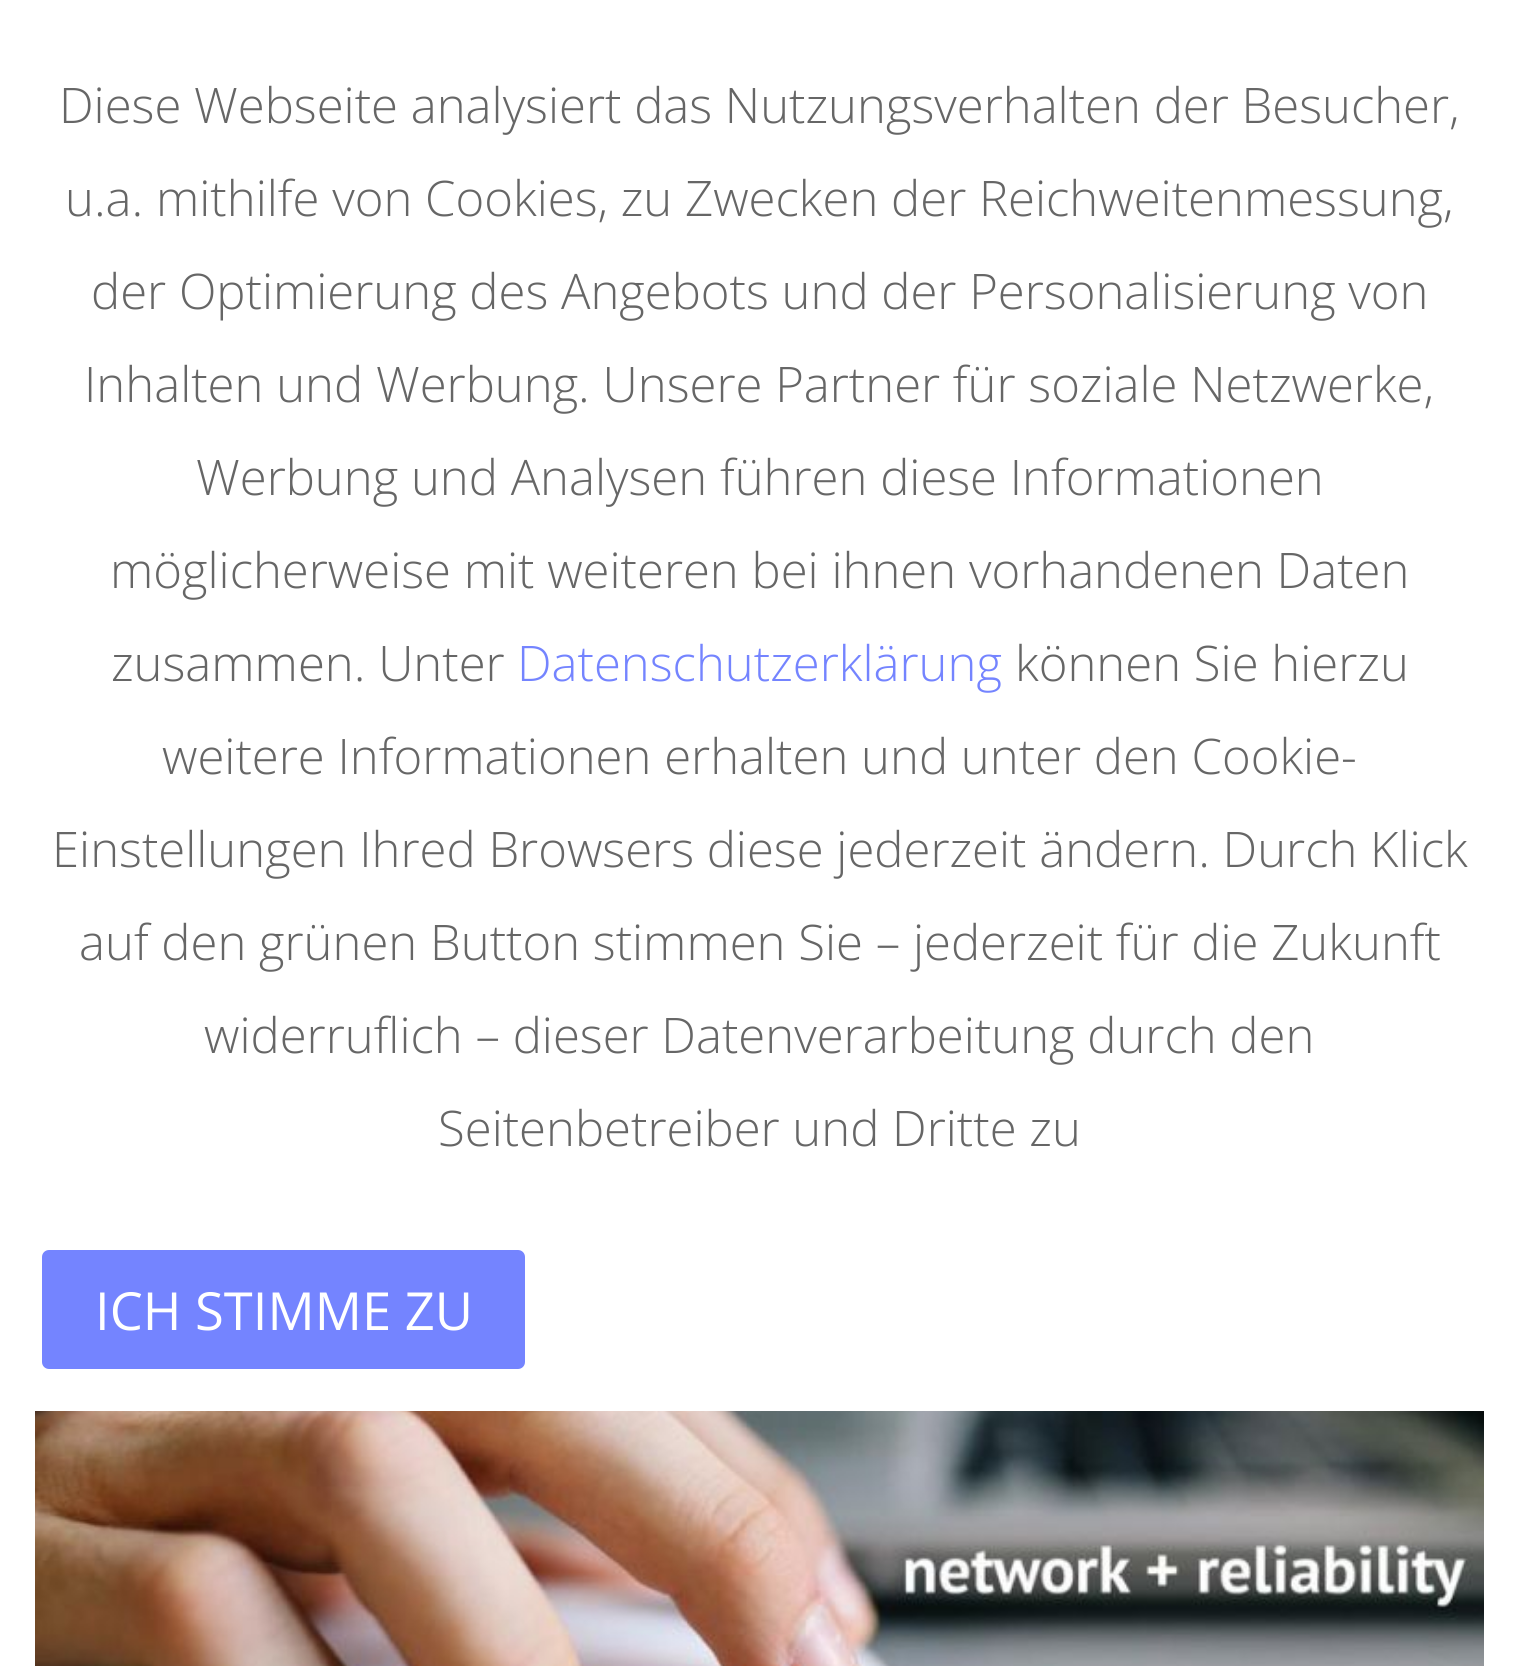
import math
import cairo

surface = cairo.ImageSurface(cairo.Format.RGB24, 1519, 1666)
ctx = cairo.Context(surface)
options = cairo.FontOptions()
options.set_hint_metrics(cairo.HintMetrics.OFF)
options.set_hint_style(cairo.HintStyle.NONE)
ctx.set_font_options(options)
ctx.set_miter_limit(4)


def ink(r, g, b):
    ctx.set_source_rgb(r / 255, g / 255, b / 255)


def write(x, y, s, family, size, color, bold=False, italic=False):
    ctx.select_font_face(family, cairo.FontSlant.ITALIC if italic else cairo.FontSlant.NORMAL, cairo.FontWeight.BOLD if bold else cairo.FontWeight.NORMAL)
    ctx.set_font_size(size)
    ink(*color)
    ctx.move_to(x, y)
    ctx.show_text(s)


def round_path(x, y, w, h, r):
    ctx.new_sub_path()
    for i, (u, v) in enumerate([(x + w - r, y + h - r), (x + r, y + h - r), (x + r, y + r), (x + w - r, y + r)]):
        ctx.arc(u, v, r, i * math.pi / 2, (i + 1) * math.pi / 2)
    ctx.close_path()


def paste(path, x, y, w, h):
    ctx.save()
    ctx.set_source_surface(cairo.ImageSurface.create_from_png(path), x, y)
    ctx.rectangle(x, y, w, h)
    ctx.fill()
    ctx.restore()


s1 = dict(family="Open Sans Light", size=49, color=(102, 102, 102))
s2 = dict(family="Open Sans Light", size=49, color=(116, 132, 255))
s3 = dict(family="Open Sans", size=52.5, color=(255, 255, 255))

ink(255, 255, 255)
ctx.paint()
write(59, 123, "Diese Webseite analysiert das Nutzungsverhalten der Besucher,", **s1)
write(65, 216, "u.a. mithilfe von Cookies, zu Zwecken der Reichweitenmessung,", **s1)
write(91, 309, "der Optimierung des Angebots und der Personalisierung von", **s1)
write(84, 402, "Inhalten und Werbung. Unsere Partner für soziale Netzwerke,", **s1)
write(196, 495, "Werbung und Analysen führen diese Informationen", **s1)
write(110, 588, "möglicherweise mit weiteren bei ihnen vorhandenen Daten", **s1)
write(111, 681, "zusammen. Unter", **s1)
write(517, 681, "Datenschutzerklärung", **s2)
write(1015, 681, "können Sie hierzu", **s1)
write(162, 774, "weitere Informationen erhalten und unter den Cookie-", **s1)
write(52, 867, "Einstellungen Ihred Browsers diese jederzeit ändern. Durch Klick", **s1)
write(79, 960, "auf den grünen Button stimmen Sie – jederzeit für die Zukunft", **s1)
write(204, 1053, "widerruflich – dieser Datenverarbeitung durch den", **s1)
write(438, 1146, "Seitenbetreiber und Dritte zu", **s1)
ink(116, 132, 255)
round_path(42, 1250, 483, 119, 7)
ctx.fill()
write(95, 1330, "ICH STIMME ZU", **s3)
paste("pic1.png", 35, 1411, 1449, 255)
surface.write_to_png("screenshot.png")
